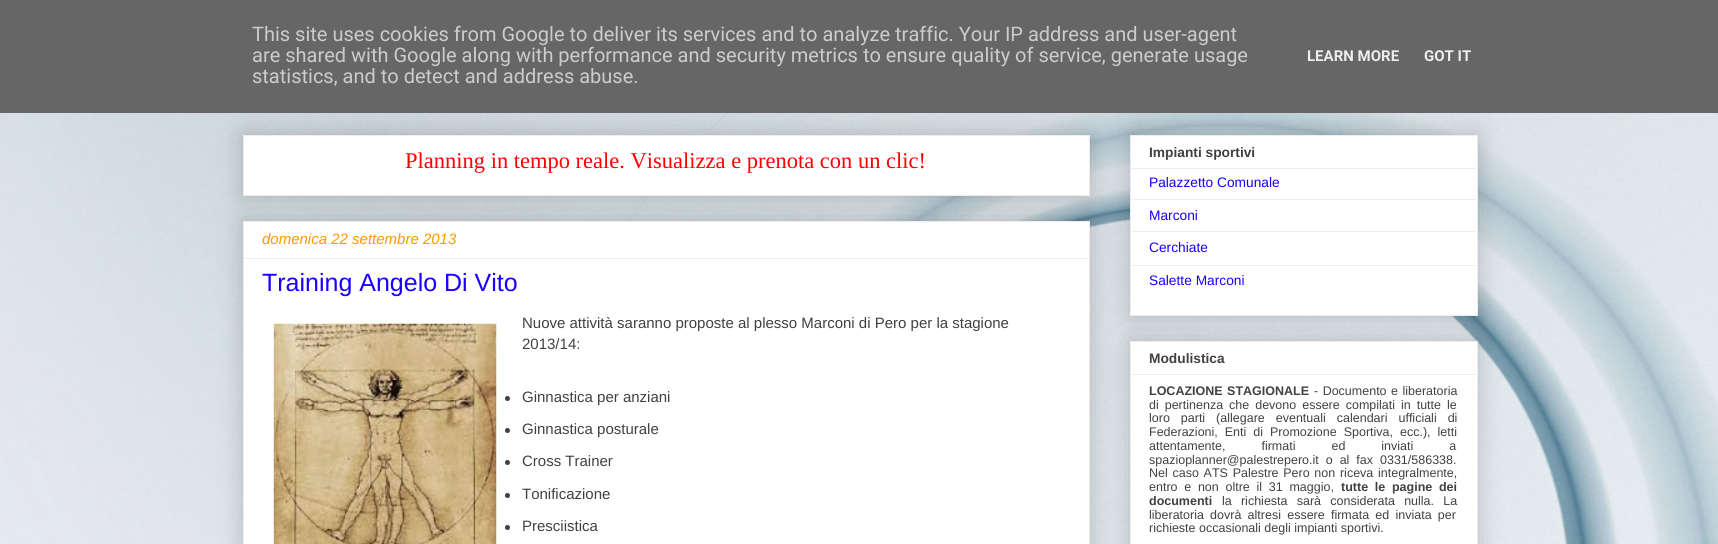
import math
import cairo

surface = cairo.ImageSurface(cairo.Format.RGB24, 1718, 544)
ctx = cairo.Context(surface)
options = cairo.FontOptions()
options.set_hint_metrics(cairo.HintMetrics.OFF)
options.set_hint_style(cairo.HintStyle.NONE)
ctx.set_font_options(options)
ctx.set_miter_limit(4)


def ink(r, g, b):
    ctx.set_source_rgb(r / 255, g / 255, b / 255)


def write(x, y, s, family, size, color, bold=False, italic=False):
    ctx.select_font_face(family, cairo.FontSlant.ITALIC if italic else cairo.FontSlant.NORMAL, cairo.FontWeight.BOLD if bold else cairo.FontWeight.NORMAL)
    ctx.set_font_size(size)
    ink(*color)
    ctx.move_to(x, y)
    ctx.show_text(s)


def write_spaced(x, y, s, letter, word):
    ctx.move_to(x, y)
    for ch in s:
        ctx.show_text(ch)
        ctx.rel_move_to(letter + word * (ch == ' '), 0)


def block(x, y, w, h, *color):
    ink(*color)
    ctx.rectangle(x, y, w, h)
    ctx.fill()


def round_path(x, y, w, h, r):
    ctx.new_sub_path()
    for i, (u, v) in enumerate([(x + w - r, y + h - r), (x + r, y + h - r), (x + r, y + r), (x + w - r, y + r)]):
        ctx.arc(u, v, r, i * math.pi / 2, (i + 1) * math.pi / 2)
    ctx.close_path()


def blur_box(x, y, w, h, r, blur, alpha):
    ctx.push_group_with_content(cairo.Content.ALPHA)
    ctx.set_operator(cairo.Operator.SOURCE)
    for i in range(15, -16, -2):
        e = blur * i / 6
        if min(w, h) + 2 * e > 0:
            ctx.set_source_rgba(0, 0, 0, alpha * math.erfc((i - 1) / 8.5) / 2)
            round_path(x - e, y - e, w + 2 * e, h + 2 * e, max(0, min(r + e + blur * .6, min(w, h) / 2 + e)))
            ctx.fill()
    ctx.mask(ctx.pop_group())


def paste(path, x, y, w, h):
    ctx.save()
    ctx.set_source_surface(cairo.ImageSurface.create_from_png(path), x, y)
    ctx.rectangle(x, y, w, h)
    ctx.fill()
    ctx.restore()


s1 = dict(family="Roboto", size=20, color=(204, 204, 204))
s2 = dict(family="Roboto", size=15, color=(238, 238, 238), bold=True)
s3 = dict(family="Liberation Serif", size=22.5, color=(255, 0, 0))
s4 = dict(family="Liberation Sans", size=15, color=(255, 153, 0), italic=True)
s5 = dict(family="Liberation Sans", size=25, color=(25, 0, 255))
s6 = dict(family="Liberation Sans", size=15, color=(65, 65, 65))
s7 = dict(family="Liberation Sans", size=13.75, color=(65, 65, 65), bold=True)
s8 = dict(family="Liberation Sans", size=13.75, color=(25, 0, 255))
s9 = dict(family="Liberation Sans", size=12.5, color=(65, 65, 65), bold=True)
s10 = dict(family="Liberation Sans", size=12.5, color=(65, 65, 65))

ink(255, 255, 255)
ctx.paint()
paste("pic1.png", 0, 113, 1718, 431)
ink(0, 0, 0)
blur_box(243, 135, 847, 61, 0, 12.5, 0.2)
blur_box(1130, 135, 348, 181, 0, 12.5, 0.2)
block(0, 0, 1718, 113, 102, 102, 102)
write(252, 41, "This site uses cookies from Google to deliver its services and to analyze traffic. Your IP address and user-agent", **s1)
write(252, 62, "are shared with Google along with performance and security metrics to ensure quality of service, generate usage", **s1)
write(252, 83, "statistics, and to detect and address abuse.", **s1)
write(1307, 61, "LEARN MORE", **s2)
write(1424, 61, "GOT IT", **s2)
ink(255, 255, 255)
ctx.rectangle(243.5, 135.5, 846, 60)
ctx.fill_preserve()
ink(237, 237, 237)
ctx.set_line_width(1)
ctx.stroke()
write(405, 168, "Planning in tempo reale. Visualizza e prenota con un clic!", **s3)
ink(0, 0, 0)
blur_box(243, 221, 847, 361, 0, 12.5, 0.2)
ink(255, 255, 255)
ctx.rectangle(243.5, 221.5, 846, 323)
ctx.fill_preserve()
ink(237, 237, 237)
ctx.stroke()
write(262, 244, "domenica 22 settembre 2013", **s4)
block(244, 258, 845, 1, 237, 237, 237)
write(262, 291, "Training Angelo Di Vito", **s5)
paste("pic2.png", 273, 323, 224, 221)
write(522, 328, "Nuove attività saranno proposte al plesso Marconi di Pero per la stagione", **s6)
write(522, 349, "2013/14:", **s6)
ctx.new_path()
ctx.arc(507.5, 398.5, 2.5, 0, 2 * math.pi)
ctx.fill()
write(522, 402, "Ginnastica per anziani", **s6)
ctx.new_path()
ctx.arc(507.5, 430.5, 2.5, 0, 2 * math.pi)
ctx.fill()
write(522, 434, "Ginnastica posturale", **s6)
ctx.new_path()
ctx.arc(507.5, 462.5, 2.5, 0, 2 * math.pi)
ctx.fill()
write(522, 466, "Cross Trainer", **s6)
ctx.new_path()
ctx.arc(507.5, 495.5, 2.5, 0, 2 * math.pi)
ctx.fill()
write(522, 499, "Tonificazione", **s6)
ctx.new_path()
ctx.arc(507.5, 527.5, 2.5, 0, 2 * math.pi)
ctx.fill()
write(522, 531, "Presciistica", **s6)
ink(255, 255, 255)
ctx.rectangle(1130.5, 135.5, 347, 180)
ctx.fill_preserve()
ink(237, 237, 237)
ctx.stroke()
write(1149, 157, "Impianti sportivi", **s7)
block(1131, 168, 345, 1, 237, 237, 237)
write(1149, 187, "Palazzetto Comunale", **s8)
block(1131, 199, 345, 1, 237, 237, 237)
write(1149, 220, "Marconi", **s8)
block(1131, 231, 345, 1, 237, 237, 237)
write(1149, 252, "Cerchiate", **s8)
block(1131, 265, 345, 1, 237, 237, 237)
write(1149, 285, "Salette Marconi", **s8)
ink(0, 0, 0)
blur_box(1130, 341, 348, 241, 0, 12.5, 0.2)
ink(255, 255, 255)
ctx.rectangle(1130.5, 341.5, 347, 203)
ctx.fill_preserve()
ink(237, 237, 237)
ctx.stroke()
write(1149, 363, "Modulistica", **s7)
block(1131, 374, 345, 1, 237, 237, 237)
ctx.set_font_size(12.5)
ink(65, 65, 65)
write_spaced(1149, 395, "LOCAZIONE STAGIONALE", 0, 1)
ctx.select_font_face("Liberation Sans")
write_spaced(1314, 395, "- Documento e liberatoria", 0, 1)
write_spaced(1149, 409, "di pertinenza che devono essere compilati in tutte le", 0, 2.5)
write_spaced(1149, 422, "loro parti (allegare eventuali calendari ufficiali di", 0, 7.5)
write_spaced(1149, 436, "Federazioni, Enti di Promozione Sportiva, ecc.), letti", 0, 3.5)
write_spaced(1149, 450, "attentamente, firmati ed inviati a", 0, 32.5)
write_spaced(1149, 464, "spazioplanner@palestrepero.it o al fax 0331/586338.", 0, 3.5)
write_spaced(1149, 477, "Nel caso ATS Palestre Pero non riceva integralmente,", 0, 1.25)
write_spaced(1149, 491, "entro e non oltre il 31 maggio,", 0, 3.25)
ctx.select_font_face("Liberation Sans", cairo.FontSlant.NORMAL, cairo.FontWeight.BOLD)
write_spaced(1341, 491, "tutte le pagine dei", 0, 3.25)
write(1149, 505, "documenti", **s9)
ctx.select_font_face("Liberation Sans")
write_spaced(1222, 505, "la richiesta sarà considerata nulla. La", 0, 5.75)
write_spaced(1149, 519, "liberatoria dovrà altresi essere firmata ed inviata per", 0, 2.75)
write(1149, 532, "richieste occasionali degli impianti sportivi.", **s10)
surface.write_to_png("screenshot.png")
